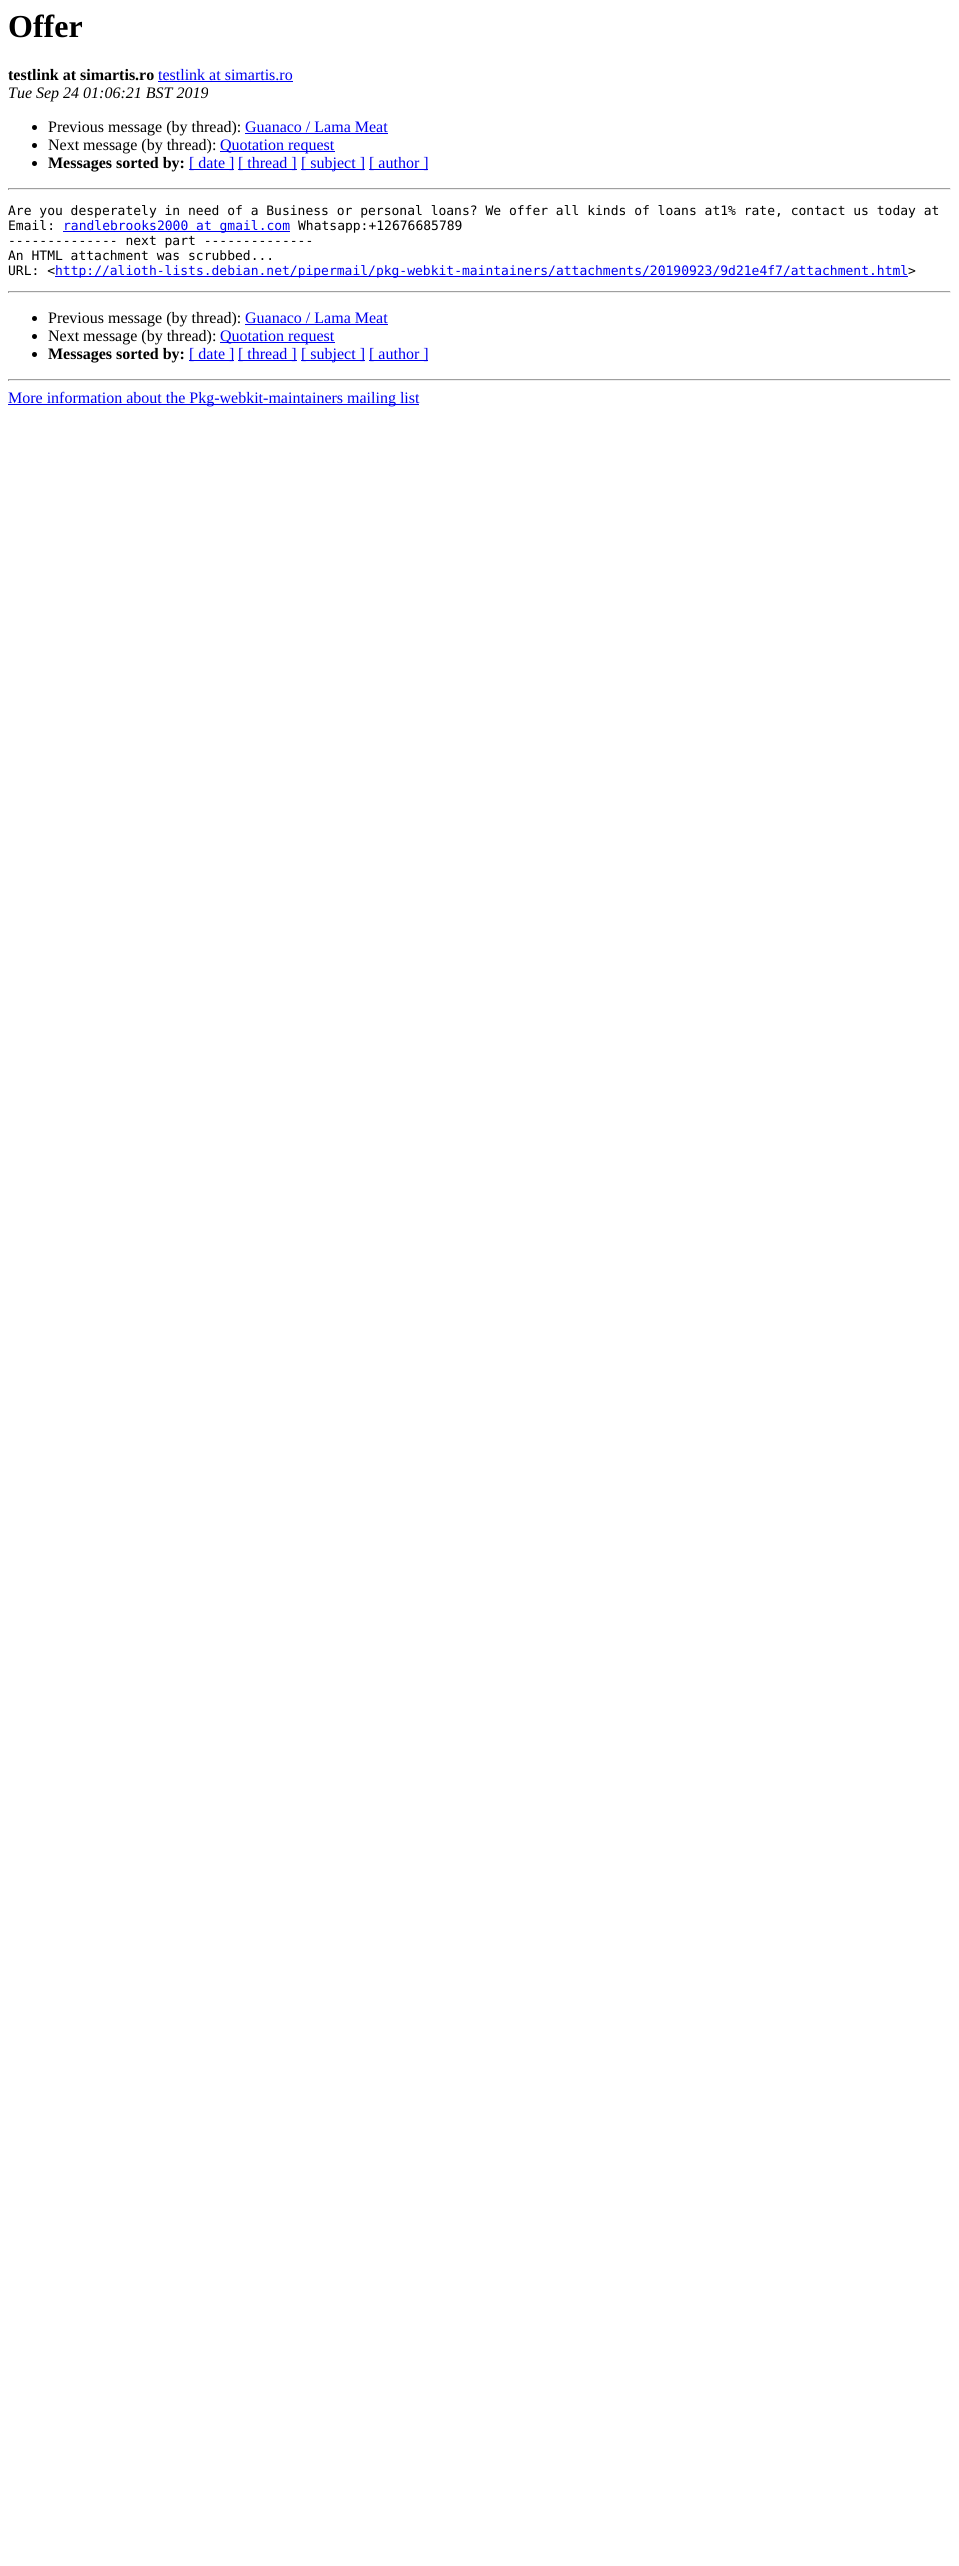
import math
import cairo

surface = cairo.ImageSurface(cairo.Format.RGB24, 959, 2566)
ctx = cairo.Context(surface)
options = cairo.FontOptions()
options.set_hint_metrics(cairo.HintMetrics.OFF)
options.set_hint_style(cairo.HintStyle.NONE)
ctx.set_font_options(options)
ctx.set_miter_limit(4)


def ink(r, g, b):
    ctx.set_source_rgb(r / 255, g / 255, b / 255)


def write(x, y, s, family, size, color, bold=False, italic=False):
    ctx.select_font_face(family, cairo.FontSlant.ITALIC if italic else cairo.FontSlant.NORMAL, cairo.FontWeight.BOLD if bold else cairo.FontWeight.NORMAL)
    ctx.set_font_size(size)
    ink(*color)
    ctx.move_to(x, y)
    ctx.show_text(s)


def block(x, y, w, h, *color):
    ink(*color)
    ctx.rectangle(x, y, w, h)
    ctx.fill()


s1 = dict(family="Liberation Serif", size=32, color=(0, 0, 0), bold=True)
s2 = dict(family="Liberation Serif", size=16, color=(0, 0, 0), bold=True)
s3 = dict(family="Liberation Serif", size=16, color=(0, 0, 238))
s4 = dict(family="Liberation Serif", size=16, color=(0, 0, 0), italic=True)
s5 = dict(family="Liberation Serif", size=16, color=(0, 0, 0))
s6 = dict(family="DejaVu Sans Mono", size=13, color=(0, 0, 0))
s7 = dict(family="DejaVu Sans Mono", size=13, color=(0, 0, 238))

ink(255, 255, 255)
ctx.paint()
write(8, 37, "Offer", **s1)
write(8, 80, "testlink at simartis.ro", **s2)
write(158, 80, "testlink at simartis.ro", **s3)
block(158, 81, 135, 1, 0, 0, 238)
write(8, 98, "Tue Sep 24 01:06:21 BST 2019", **s4)
ctx.new_path()
ctx.arc(34.5, 127.5, 2.5, 0, 2 * math.pi)
ctx.fill()
write(48, 132, "Previous message (by thread):", **s5)
write(245, 132, "Guanaco / Lama Meat", **s3)
block(245, 133, 143, 1, 0, 0, 238)
ink(0, 0, 0)
ctx.new_path()
ctx.arc(34.5, 145.5, 2.5, 0, 2 * math.pi)
ctx.fill()
write(48, 150, "Next message (by thread):", **s5)
block(220, 151, 115, 1, 0, 0, 238)
write(220, 150, "Quotation request", **s3)
ink(0, 0, 0)
ctx.new_path()
ctx.arc(34.5, 163.5, 2.5, 0, 2 * math.pi)
ctx.fill()
write(48, 168, "Messages sorted by:", **s2)
block(189, 169, 45, 1, 0, 0, 238)
write(189, 168, "[ date ]", **s3)
block(238, 169, 59, 1, 0, 0, 238)
write(238, 168, "[ thread ]", **s3)
block(301, 169, 64, 1, 0, 0, 238)
write(301, 168, "[ subject ]", **s3)
block(369, 169, 59, 1, 0, 0, 238)
write(369, 168, "[ author ]", **s3)
block(8, 188, 943, 1, 159, 159, 159)
block(950, 188, 1, 2, 238, 238, 238)
block(8, 189, 943, 1, 238, 238, 238)
block(8, 188, 1, 2, 159, 159, 159)
write(8, 215, "Are you desperately in need of a Business or personal loans? We offer all kinds of loans at1% rate, contact us today at", **s6)
write(8, 230, "Email:", **s6)
block(63, 231, 227, 1, 0, 0, 238)
write(63, 230, "randlebrooks2000 at gmail.com", **s7)
write(298, 230, "Whatsapp:+12676685789", **s6)
write(8, 245, "-------------- next part --------------", **s6)
write(8, 260, "An HTML attachment was scrubbed...", **s6)
write(8, 275, "URL: <", **s6)
block(55, 276, 853, 1, 0, 0, 238)
write(55, 275, "http://alioth-lists.debian.net/pipermail/pkg-webkit-maintainers/attachments/20190923/9d21e4f7/attachment.html", **s7)
write(908, 275, ">", **s6)
block(8, 291, 943, 1, 159, 159, 159)
block(950, 291, 1, 2, 238, 238, 238)
block(8, 292, 943, 1, 238, 238, 238)
block(8, 291, 1, 2, 159, 159, 159)
ink(0, 0, 0)
ctx.new_path()
ctx.arc(34.5, 318.5, 2.5, 0, 2 * math.pi)
ctx.fill()
write(48, 323, "Previous message (by thread):", **s5)
write(245, 323, "Guanaco / Lama Meat", **s3)
block(245, 324, 143, 1, 0, 0, 238)
ink(0, 0, 0)
ctx.new_path()
ctx.arc(34.5, 336.5, 2.5, 0, 2 * math.pi)
ctx.fill()
write(48, 341, "Next message (by thread):", **s5)
block(220, 342, 115, 1, 0, 0, 238)
write(220, 341, "Quotation request", **s3)
ink(0, 0, 0)
ctx.new_path()
ctx.arc(34.5, 354.5, 2.5, 0, 2 * math.pi)
ctx.fill()
write(48, 359, "Messages sorted by:", **s2)
block(189, 360, 45, 1, 0, 0, 238)
write(189, 359, "[ date ]", **s3)
block(238, 360, 59, 1, 0, 0, 238)
write(238, 359, "[ thread ]", **s3)
block(301, 360, 64, 1, 0, 0, 238)
write(301, 359, "[ subject ]", **s3)
block(369, 360, 59, 1, 0, 0, 238)
write(369, 359, "[ author ]", **s3)
block(8, 379, 943, 1, 159, 159, 159)
block(950, 379, 1, 2, 238, 238, 238)
block(8, 380, 943, 1, 238, 238, 238)
block(8, 379, 1, 2, 159, 159, 159)
block(8, 404, 411, 1, 0, 0, 238)
write(8, 403, "More information about the Pkg-webkit-maintainers mailing list", **s3)
surface.write_to_png("screenshot.png")
